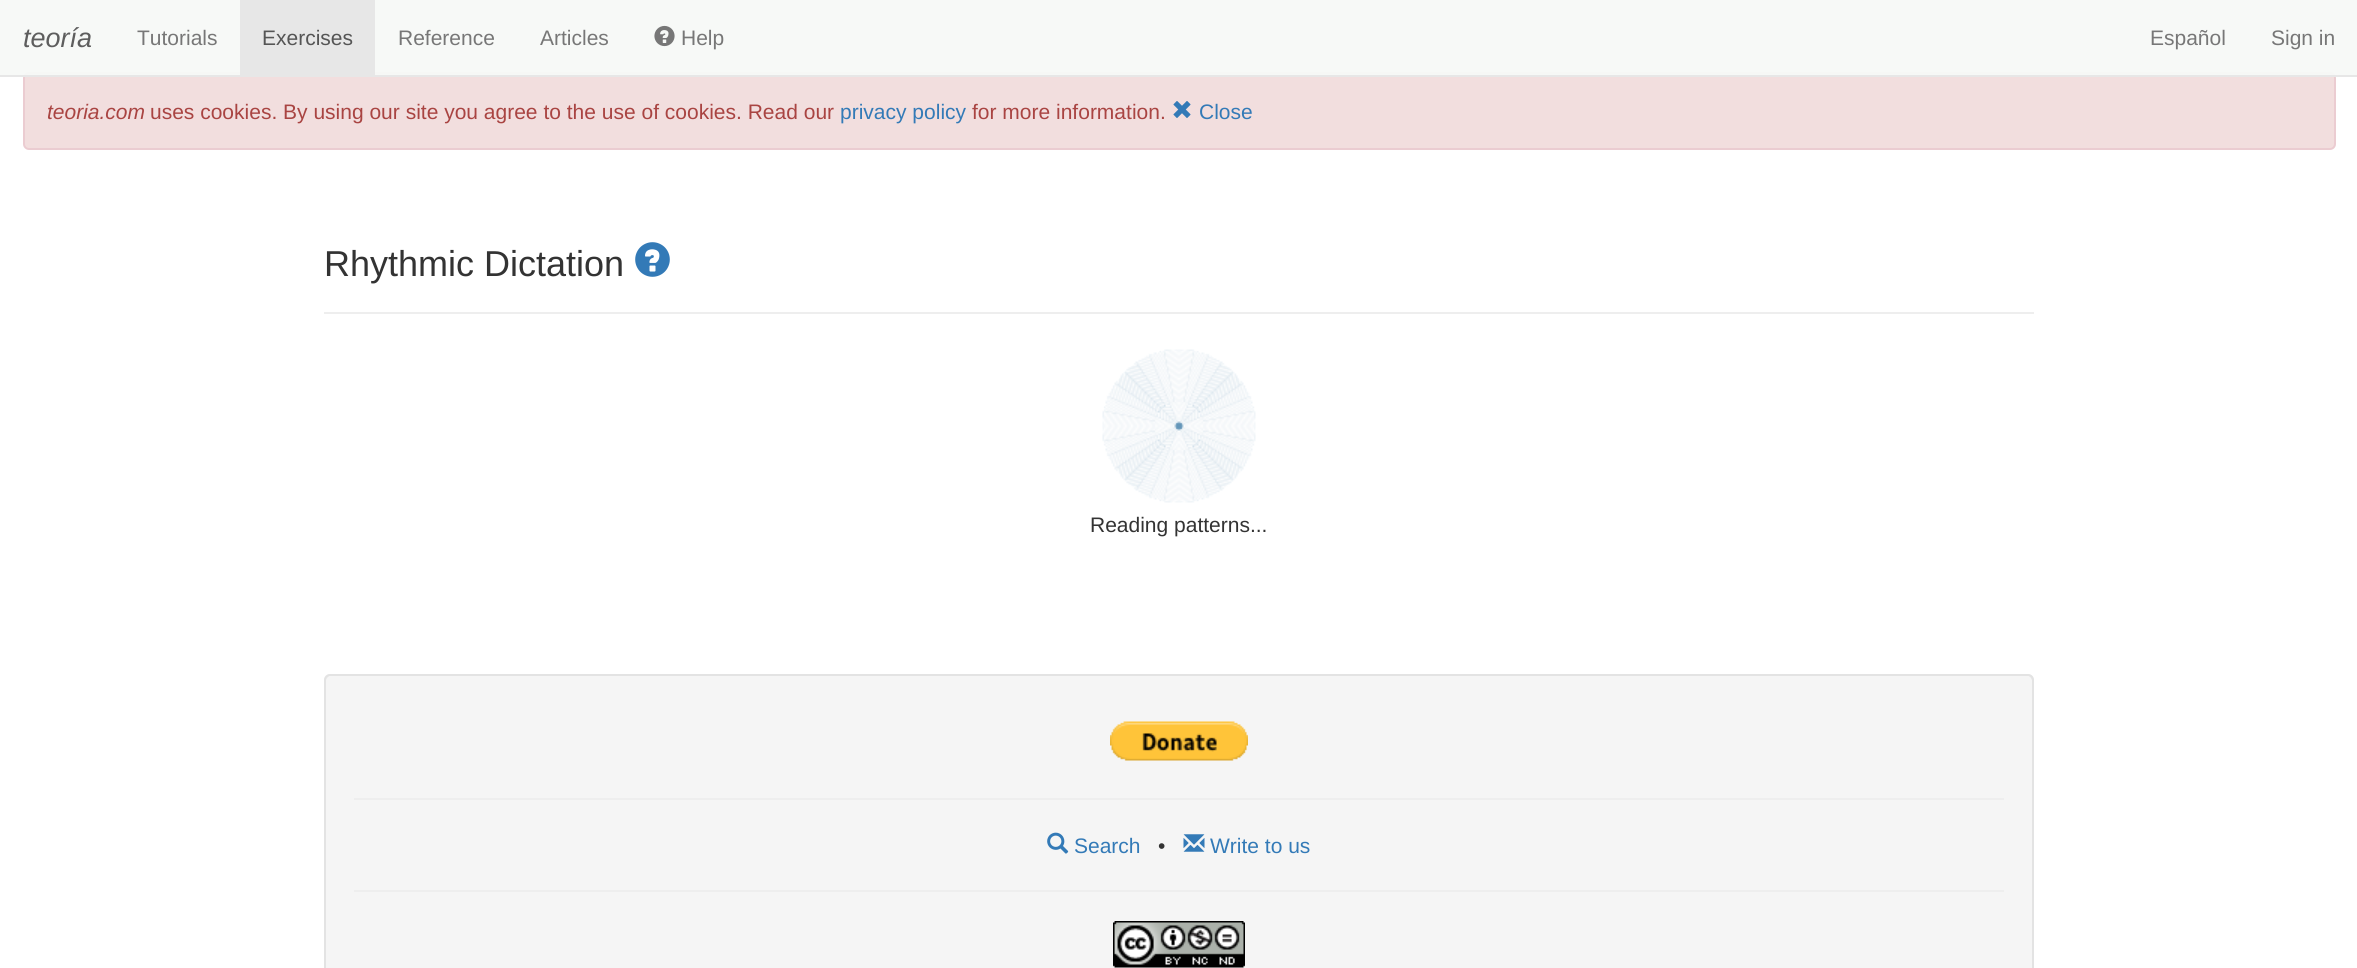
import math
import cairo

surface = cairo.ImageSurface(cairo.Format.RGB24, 2357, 968)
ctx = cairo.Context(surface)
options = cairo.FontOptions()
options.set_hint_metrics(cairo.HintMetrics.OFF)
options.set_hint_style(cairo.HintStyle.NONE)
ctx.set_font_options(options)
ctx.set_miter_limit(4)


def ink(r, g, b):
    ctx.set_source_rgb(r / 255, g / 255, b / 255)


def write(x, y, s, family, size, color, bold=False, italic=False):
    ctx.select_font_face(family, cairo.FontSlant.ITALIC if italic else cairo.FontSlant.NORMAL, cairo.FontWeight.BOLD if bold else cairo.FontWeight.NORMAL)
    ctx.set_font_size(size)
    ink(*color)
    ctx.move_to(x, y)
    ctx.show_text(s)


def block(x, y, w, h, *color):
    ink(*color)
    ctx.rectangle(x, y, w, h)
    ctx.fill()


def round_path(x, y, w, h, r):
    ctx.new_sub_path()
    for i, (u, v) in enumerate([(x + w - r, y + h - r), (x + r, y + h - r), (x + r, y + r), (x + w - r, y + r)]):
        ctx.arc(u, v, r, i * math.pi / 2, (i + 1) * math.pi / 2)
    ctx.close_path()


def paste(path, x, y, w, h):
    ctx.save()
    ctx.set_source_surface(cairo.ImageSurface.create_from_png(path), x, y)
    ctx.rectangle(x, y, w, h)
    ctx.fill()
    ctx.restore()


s1 = dict(family="Liberation Sans", size=27, color=(94, 94, 94), italic=True)
s2 = dict(family="Liberation Sans", size=21, color=(119, 119, 119))
s3 = dict(family="Liberation Sans", size=21, color=(85, 85, 85))
s4 = dict(family="Liberation Sans", size=21, color=(169, 68, 66), italic=True)
s5 = dict(family="Liberation Sans", size=21, color=(169, 68, 66))
s6 = dict(family="Liberation Sans", size=21, color=(51, 122, 183))
s7 = dict(family="Liberation Sans", size=36, color=(51, 51, 51))
s8 = dict(family="Liberation Sans", size=21, color=(51, 51, 51))

ink(255, 255, 255)
ctx.paint()
ink(242, 222, 222)
round_path(24, 73, 2311, 76, 5)
ctx.fill_preserve()
ink(235, 204, 209)
ctx.stroke()
ctx.set_source_rgba(0.965, 0.973, 0.965, 0.96)
ctx.rectangle(0, 0, 2357, 75)
ctx.fill()
block(0, 75, 2357, 2, 231, 231, 231)
write(23, 47, "teoría", **s1)
write(137, 45, "Tutorials", **s2)
block(240, 0, 135, 75, 231, 231, 231)
write(262, 45, "Exercises", **s3)
write(398, 45, "Reference", **s2)
write(540, 45, "Articles", **s2)
paste("pic1.png", 654, 25, 21, 22)
write(681, 45, "Help", **s2)
write(2150, 45, "Español", **s2)
write(2271, 45, "Sign in", **s2)
write(47, 119, "teoria.com", **s4)
write(150, 119, "uses cookies. By using our site you agree to the use of cookies. Read our", **s5)
write(840, 119, "privacy policy", **s6)
write(972, 119, "for more information.", **s5)
paste("pic2.png", 1173, 101, 18, 17)
write(1199, 119, "Close", **s6)
block(324, 312, 1710, 2, 238, 238, 238)
write(324, 276, "Rhythmic Dictation", **s7)
paste("pic3.png", 635, 242, 35, 35)
paste("pic4.png", 1102, 349, 154, 154)
write(1090, 532, "Reading patterns...", **s8)
ink(245, 245, 245)
round_path(324, 674, 1710, 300, 6)
ctx.fill()
ink(233, 233, 233)
ctx.new_path()
ctx.move_to(330, 676)
ctx.line_to(2028, 676)
ctx.curve_to(2030, 676, 2032, 679, 2032, 681)
ctx.line_to(2032, 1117)
ctx.curve_to(2033, 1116, 2033, 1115, 2033, 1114)
ctx.line_to(2033, 680)
ctx.curve_to(2033, 677, 2031, 675, 2028, 675)
ctx.line_to(331, 675)
ctx.curve_to(328, 675, 326, 677, 326, 680)
ctx.line_to(326, 681)
ctx.curve_to(326, 679, 328, 676, 330, 676)
ctx.close_path()
ctx.fill()
round_path(325, 675, 1708, 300, 5)
ink(227, 227, 227)
ctx.stroke()
paste("pic5.png", 1110, 721, 138, 40)
block(354, 798, 1650, 2, 238, 238, 238)
paste("pic6.png", 1047, 832, 22, 22)
write(1074, 853, "Search", **s6)
write(1158, 853, "•", **s8)
paste("pic7.png", 1183, 834, 22, 18)
write(1210, 853, "Write to us", **s6)
block(354, 890, 1650, 2, 238, 238, 238)
paste("pic8.png", 1113, 921, 132, 47)
surface.write_to_png("screenshot.png")
